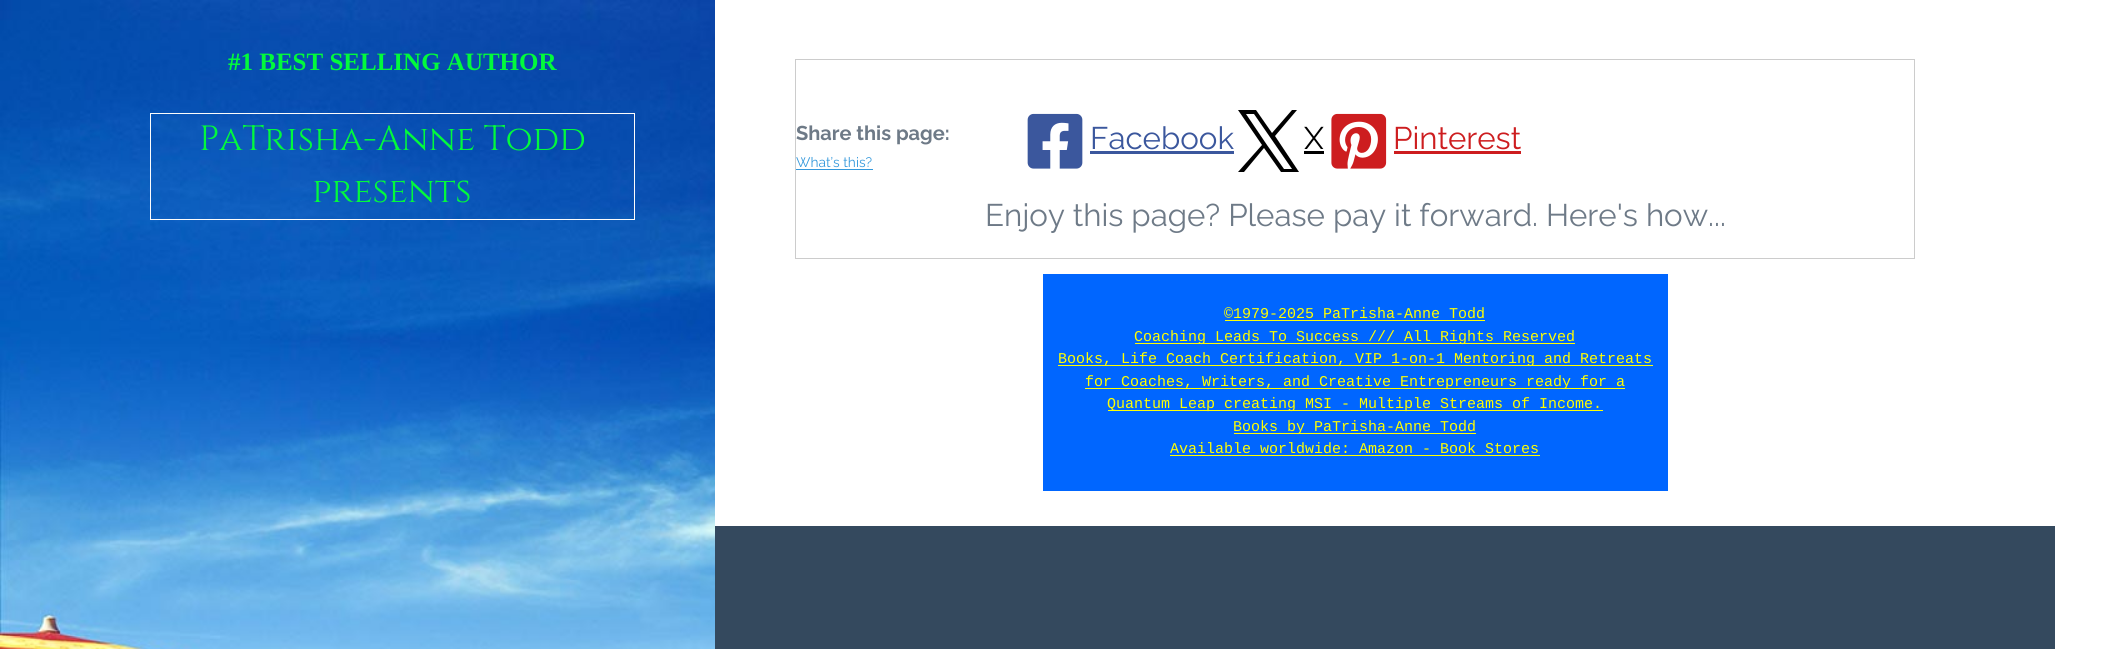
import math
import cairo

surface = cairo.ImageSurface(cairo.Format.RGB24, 2110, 649)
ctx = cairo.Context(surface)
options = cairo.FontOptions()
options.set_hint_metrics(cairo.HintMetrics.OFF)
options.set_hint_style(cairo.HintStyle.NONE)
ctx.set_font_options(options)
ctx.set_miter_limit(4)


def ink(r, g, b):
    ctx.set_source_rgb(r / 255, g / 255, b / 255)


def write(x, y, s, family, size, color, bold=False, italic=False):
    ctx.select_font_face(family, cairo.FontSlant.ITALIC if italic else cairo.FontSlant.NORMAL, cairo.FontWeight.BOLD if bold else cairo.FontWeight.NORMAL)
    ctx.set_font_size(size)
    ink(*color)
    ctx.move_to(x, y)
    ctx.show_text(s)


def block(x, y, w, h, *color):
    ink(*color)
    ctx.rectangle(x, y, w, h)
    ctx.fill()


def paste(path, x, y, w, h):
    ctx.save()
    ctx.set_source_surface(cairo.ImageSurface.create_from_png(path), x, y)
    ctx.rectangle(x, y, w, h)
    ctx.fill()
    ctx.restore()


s1 = dict(family="Liberation Serif", size=25, color=(2, 250, 60), bold=True)
s2 = dict(family="Cinzel", size=35, color=(2, 250, 60))
s3 = dict(family="Raleway", size=20, color=(110, 122, 135), bold=True)
s4 = dict(family="Raleway", size=13.75, color=(52, 152, 219))
s5 = dict(family="Raleway", size=31.25, color=(59, 87, 157))
s6 = dict(family="Raleway", size=31.25, color=(0, 0, 0))
s7 = dict(family="Raleway", size=31.25, color=(205, 29, 31))
s8 = dict(family="Raleway", size=31.25, color=(110, 122, 135))
s9 = dict(family="Liberation Mono", size=15, color=(255, 255, 0))

ink(255, 255, 255)
ctx.paint()
paste("pic1.png", 0, 0, 715, 649)
write(228, 70, "#1 BEST SELLING AUTHOR", **s1)
ctx.rectangle(150.5, 113.5, 484, 106)
ink(252, 252, 252)
ctx.set_line_width(1)
ctx.stroke()
write(199, 150, "PaTrisha-Anne Todd", **s2)
write(312, 202, "presents", **s2)
ctx.rectangle(795.5, 59.5, 1119, 199)
ink(204, 204, 204)
ctx.stroke()
write(796, 140, "Share this page:", **s3)
write(796, 167, "What’s this?", **s4)
block(796, 169, 77, 1, 52, 152, 219)
paste("pic2.png", 1027, 113, 56, 56)
write(1090, 149, "Facebook", **s5)
block(1090, 151, 144, 3, 59, 87, 157)
ink(0, 0, 0)
ctx.new_path()
ctx.move_to(1275, 136)
ctx.line_to(1297, 110)
ctx.line_to(1292, 110)
ctx.line_to(1272, 133)
ctx.line_to(1256, 110)
ctx.line_to(1238, 110)
ctx.line_to(1262, 145)
ctx.line_to(1238, 172)
ctx.line_to(1244, 172)
ctx.line_to(1264, 148)
ctx.line_to(1281, 172)
ctx.line_to(1299, 172)
ctx.close_path()
ctx.move_to(1267, 145)
ctx.line_to(1246, 114)
ctx.line_to(1254, 114)
ctx.line_to(1292, 169)
ctx.line_to(1284, 169)
ctx.close_path()
ctx.fill()
write(1304, 149, "X", **s6)
block(1304, 151, 20, 3, 0, 0, 0)
paste("pic3.png", 1331, 113, 56, 56)
write(1393, 149, "Pinterest", **s7)
block(1394, 151, 127, 3, 205, 29, 31)
write(985, 226, "Enjoy this page? Please pay it forward. Here's how...", **s8)
block(1043, 274, 625, 217, 0, 102, 255)
write(1224, 318, "©1979-2025 PaTrisha-Anne Todd", **s9)
block(1225, 320, 260, 1, 255, 255, 0)
block(1135, 343, 440, 1, 255, 255, 0)
write(1134, 341, "Coaching Leads To Success /// All Rights Reserved", **s9)
block(1058, 365, 595, 1, 255, 255, 0)
write(1058, 363, "Books, Life Coach Certification, VIP 1-on-1 Mentoring and Retreats", **s9)
block(1085, 388, 540, 1, 255, 255, 0)
write(1085, 386, "for Coaches, Writers, and Creative Entrepreneurs ready for a", **s9)
block(1108, 410, 495, 1, 255, 255, 0)
write(1107, 408, "Quantum Leap creating MSI - Multiple Streams of Income.", **s9)
block(1234, 433, 242, 1, 255, 255, 0)
write(1233, 431, "Books by PaTrisha-Anne Todd", **s9)
write(1170, 453, "Available worldwide: Amazon - Book Stores", **s9)
block(1170, 455, 370, 1, 255, 255, 0)
block(715, 526, 1340, 123, 52, 73, 94)
surface.write_to_png("screenshot.png")
